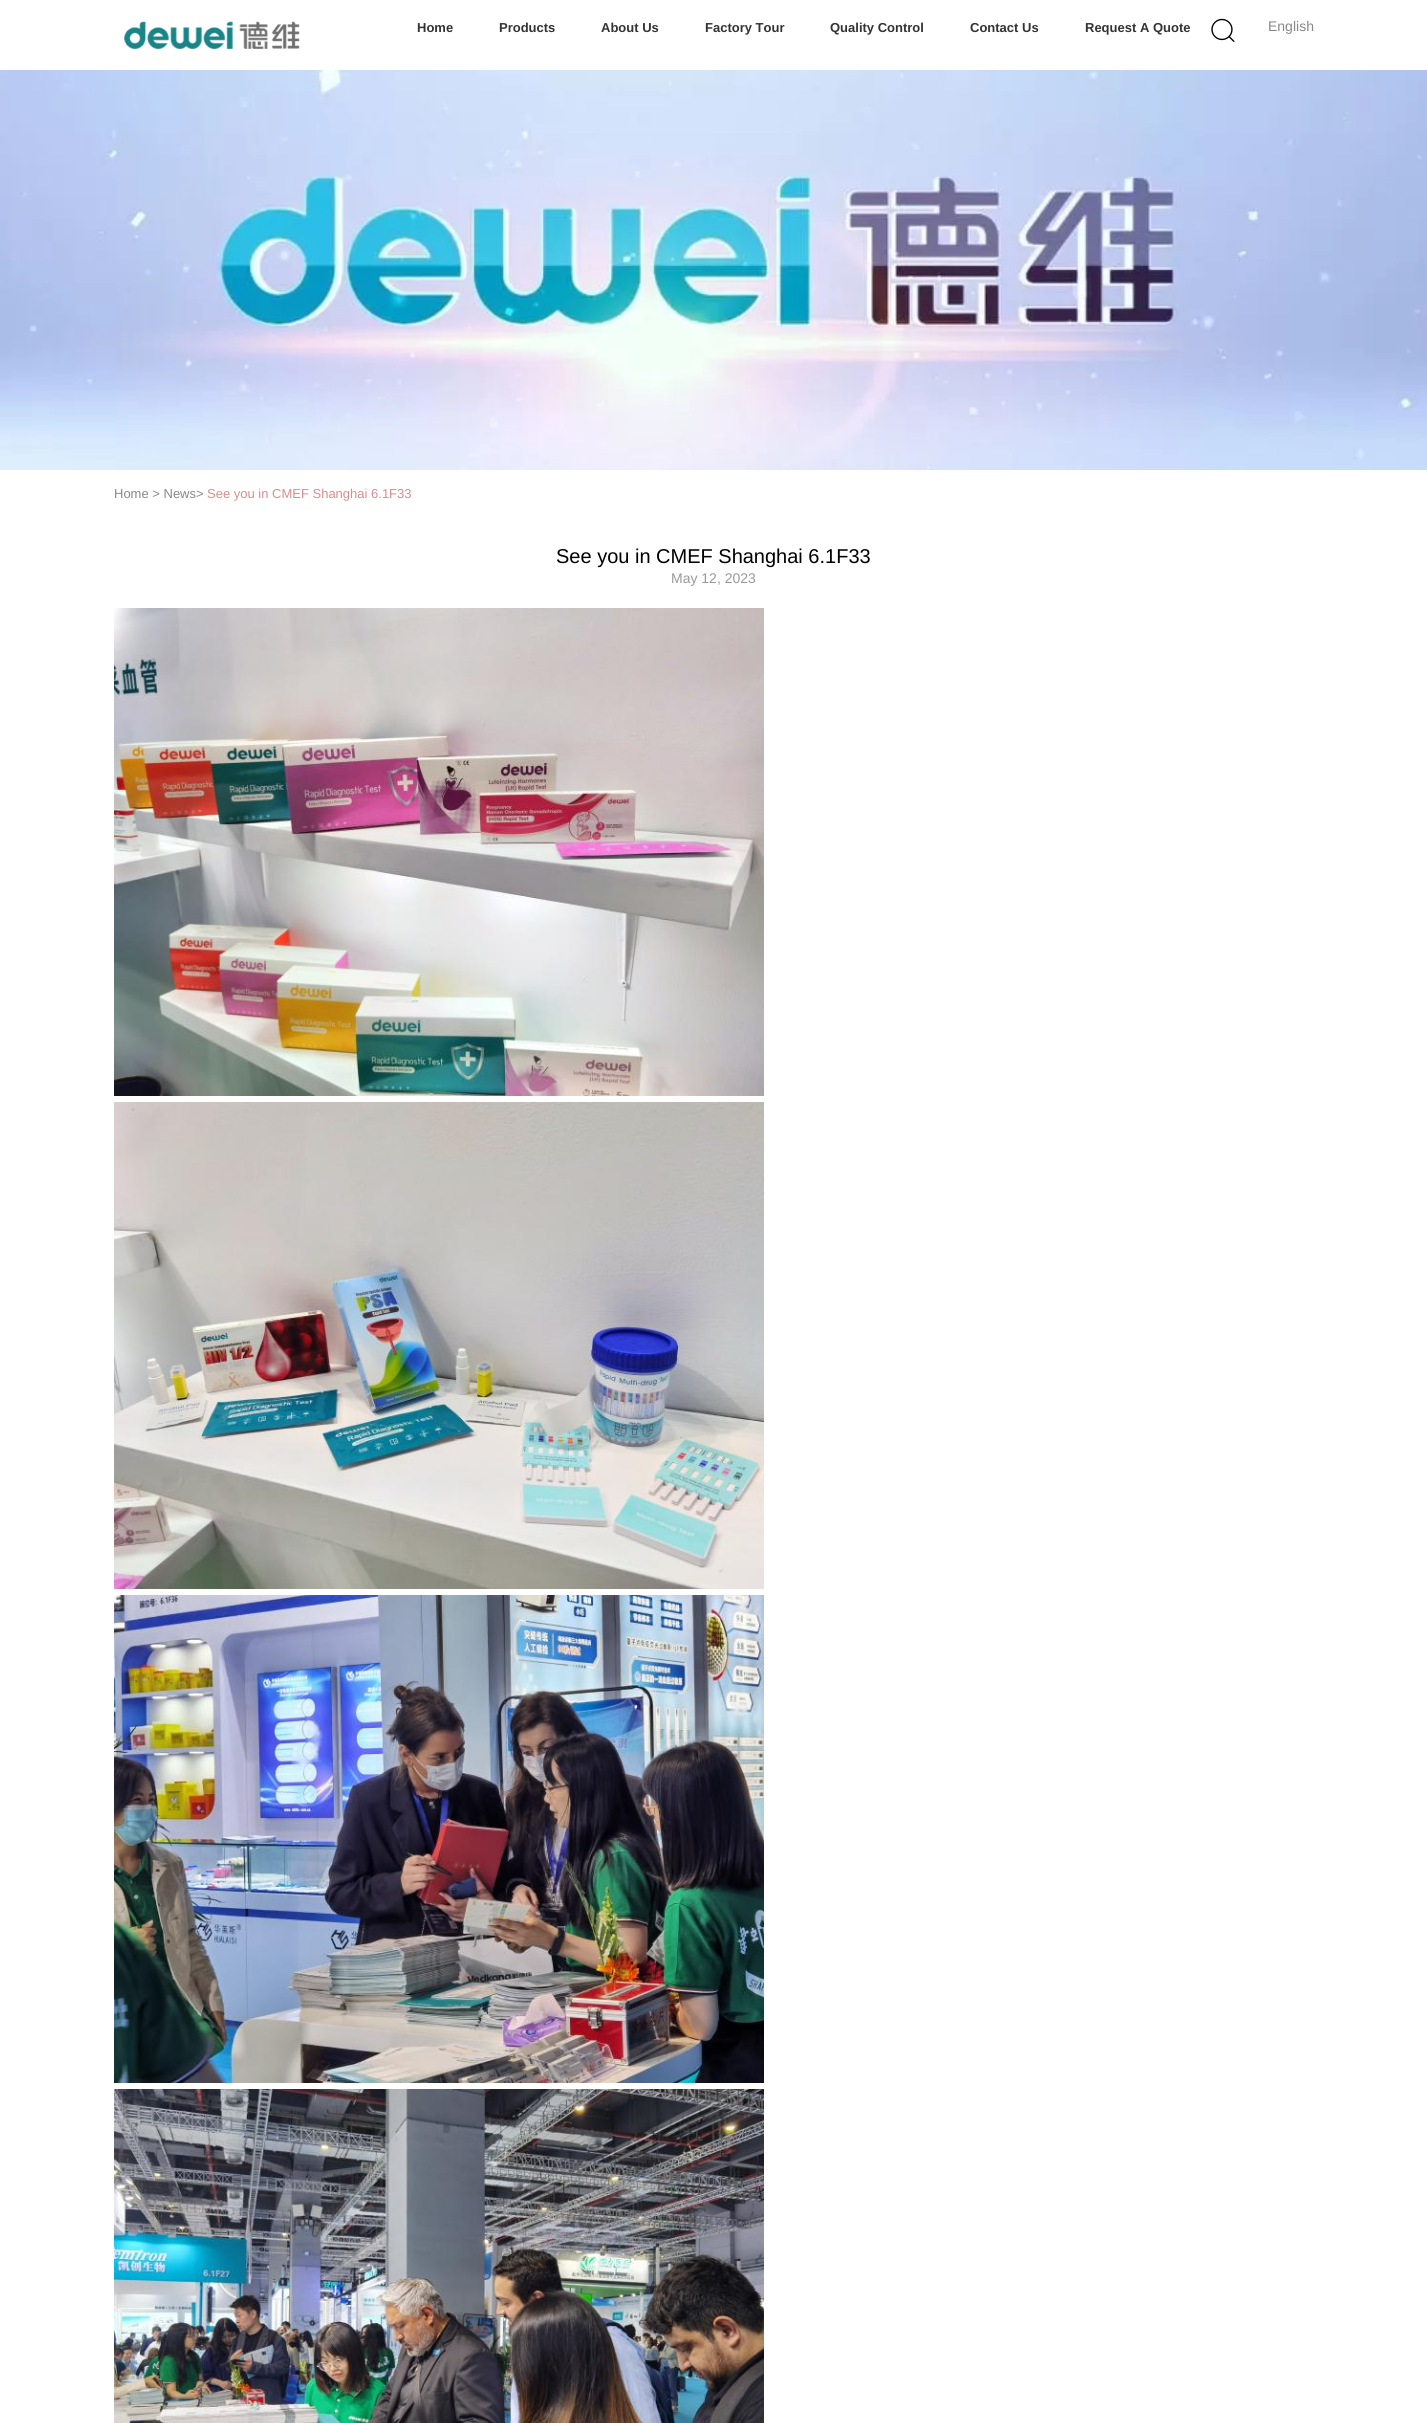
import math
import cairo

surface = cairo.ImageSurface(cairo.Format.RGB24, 1427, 2423)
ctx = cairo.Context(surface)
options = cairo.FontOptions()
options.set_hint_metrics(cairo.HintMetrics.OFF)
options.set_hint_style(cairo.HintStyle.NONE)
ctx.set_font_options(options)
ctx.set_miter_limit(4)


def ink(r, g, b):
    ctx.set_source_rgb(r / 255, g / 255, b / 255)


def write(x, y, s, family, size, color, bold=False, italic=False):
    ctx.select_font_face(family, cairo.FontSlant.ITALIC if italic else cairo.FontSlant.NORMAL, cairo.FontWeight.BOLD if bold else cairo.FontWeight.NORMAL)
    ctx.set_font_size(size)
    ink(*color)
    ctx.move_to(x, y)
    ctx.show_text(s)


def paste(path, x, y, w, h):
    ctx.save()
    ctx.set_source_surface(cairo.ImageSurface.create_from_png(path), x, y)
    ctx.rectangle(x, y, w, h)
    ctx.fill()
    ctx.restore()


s1 = dict(family="Liberation Sans", size=13, color=(51, 51, 51), bold=True)
s2 = dict(family="Liberation Sans", size=14, color=(136, 136, 136))
s3 = dict(family="Liberation Sans", size=13, color=(136, 136, 136))
s4 = dict(family="Liberation Sans", size=13, color=(216, 141, 141))
s5 = dict(family="Liberation Sans", size=20, color=(0, 0, 0))
s6 = dict(family="Liberation Sans", size=14, color=(153, 153, 153))

ink(255, 255, 255)
ctx.paint()
paste("pic1.png", 124, 21, 176, 28)
write(417, 32, "Home", **s1)
write(499, 32, "Products", **s1)
write(601, 32, "About Us", **s1)
write(705, 32, "Factory Tour", **s1)
write(830, 32, "Quality Control", **s1)
write(970, 32, "Contact Us", **s1)
write(1085, 32, "Request A Quote", **s1)
paste("pic2.png", 1211, 18, 24, 25)
write(1268, 31, "English", **s2)
paste("pic3.png", 0, 70, 1427, 400)
write(114, 498, "Home > News>", **s3)
write(207, 498, "See you in CMEF Shanghai 6.1F33", **s4)
write(556, 563, "See you in CMEF Shanghai 6.1F33", **s5)
write(671, 583, "May 12, 2023", **s6)
paste("pic4.png", 114, 608, 650, 488)
paste("pic5.png", 114, 1102, 650, 487)
paste("pic6.png", 114, 1595, 650, 488)
paste("pic7.png", 114, 2089, 650, 334)
surface.write_to_png("screenshot.png")
